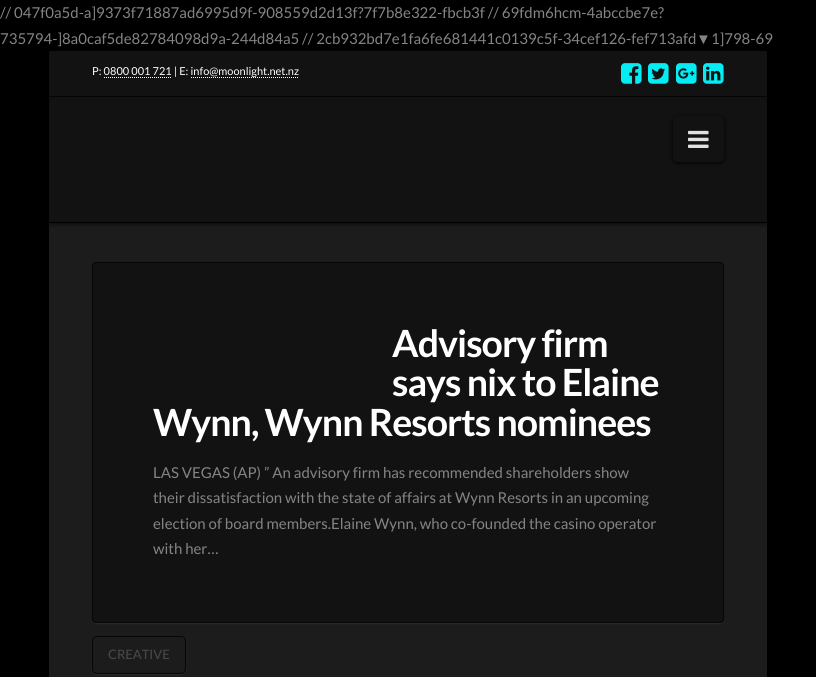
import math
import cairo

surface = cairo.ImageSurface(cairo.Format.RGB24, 816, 677)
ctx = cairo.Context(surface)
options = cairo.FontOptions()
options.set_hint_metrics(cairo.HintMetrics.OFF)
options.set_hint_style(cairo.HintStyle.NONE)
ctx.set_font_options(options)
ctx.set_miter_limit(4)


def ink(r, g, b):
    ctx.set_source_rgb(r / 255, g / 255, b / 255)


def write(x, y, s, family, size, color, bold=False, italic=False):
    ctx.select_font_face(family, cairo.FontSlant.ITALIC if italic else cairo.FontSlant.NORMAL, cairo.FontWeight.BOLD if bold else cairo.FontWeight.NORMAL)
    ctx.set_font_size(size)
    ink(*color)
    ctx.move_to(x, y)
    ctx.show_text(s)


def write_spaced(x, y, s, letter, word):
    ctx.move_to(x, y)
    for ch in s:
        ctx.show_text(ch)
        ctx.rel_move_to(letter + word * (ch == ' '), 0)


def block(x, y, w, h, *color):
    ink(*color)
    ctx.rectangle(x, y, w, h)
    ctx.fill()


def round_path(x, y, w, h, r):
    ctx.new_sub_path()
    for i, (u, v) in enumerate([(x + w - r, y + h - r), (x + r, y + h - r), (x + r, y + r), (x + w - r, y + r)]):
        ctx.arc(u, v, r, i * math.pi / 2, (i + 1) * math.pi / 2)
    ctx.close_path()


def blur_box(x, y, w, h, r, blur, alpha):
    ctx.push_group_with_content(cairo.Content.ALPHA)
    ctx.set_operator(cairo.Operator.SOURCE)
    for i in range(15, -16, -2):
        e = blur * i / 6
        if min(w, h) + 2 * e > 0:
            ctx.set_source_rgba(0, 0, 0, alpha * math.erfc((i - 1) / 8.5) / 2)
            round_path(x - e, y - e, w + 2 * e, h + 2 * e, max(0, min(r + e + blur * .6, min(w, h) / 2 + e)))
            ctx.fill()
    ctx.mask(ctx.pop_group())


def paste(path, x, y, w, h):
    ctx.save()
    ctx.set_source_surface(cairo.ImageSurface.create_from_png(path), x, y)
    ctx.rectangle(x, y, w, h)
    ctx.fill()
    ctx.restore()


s1 = dict(family="Lato", size=15, color=(132, 132, 132))
s2 = dict(family="Liberation Sans", size=15, color=(132, 132, 132))
s3 = dict(family="Lato", size=11, color=(255, 255, 255))
s4 = dict(family="Lato", size=13, color=(73, 73, 73))

ink(0, 0, 0)
ctx.paint()
write(0, 18, "// 047f0a5d-a]9373f71887ad6995d9f-908559d2d13f?7f7b8e322-fbcb3f // 69fdm6hcm-4abccbe7e?", **s1)
write(0, 44, "735794-]8a0caf5de82784098d9a-244d84a5 // 2cb932bd7e1fa6fe681441c0139c5f-34cef126-fef713afd", **s1)
write(696, 44, "▼", **s2)
write(711, 44, "1]798-69", **s1)
block(49, 223, 718, 454, 28, 28, 28)
ink(0, 0, 0)
blur_box(49, 99, 718, 126, 0, 2, 0.47)
block(49, 51, 718, 45, 18, 18, 18)
block(49, 96, 718, 1, 5, 5, 5)
write(92, 75, "P: 0800 001 721 | E: info@moonlight.net.nz", **s3)
ctx.new_path()
ctx.move_to(104, 77.5)
ctx.line_to(172, 77.5)
ctx.set_line_width(1)
ctx.set_dash([1, 1])
ctx.stroke()
ctx.new_path()
ctx.move_to(191, 77.5)
ctx.line_to(299, 77.5)
ctx.stroke()
paste("pic1.png", 621, 63, 21, 21)
paste("pic2.png", 648, 63, 21, 21)
paste("pic3.png", 676, 63, 21, 21)
paste("pic4.png", 703, 63, 21, 21)
block(49, 97, 718, 125, 18, 18, 18)
ink(0, 0, 0)
blur_box(673, 117, 51, 46, 4, 2, 1)
ink(18, 18, 18)
round_path(673, 116, 51, 46, 4)
ctx.fill()
paste("pic5.png", 688, 130, 21, 18)
ink(255, 255, 255)
blur_box(94, 267, 628, 357, 2, 1, 0.07)
ink(18, 18, 18)
round_path(92.5, 262.5, 631, 360, 3.5)
ctx.fill_preserve()
ink(5, 5, 5)
ctx.set_dash([])
ctx.stroke()
ctx.select_font_face("Lato", cairo.FontSlant.NORMAL, cairo.FontWeight.BOLD)
ctx.set_font_size(37.5)
ink(255, 255, 255)
write_spaced(392, 357, "Advisory firm", -1, 0)
write_spaced(392, 396, "says nix to Elaine", -1, 0)
write_spaced(153, 436, "Wynn, Wynn Resorts nominees", -1, 0)
write(153, 478, "LAS VEGAS (AP) ” An advisory firm has recommended shareholders show", **s1)
write(153, 503, "their dissatisfaction with the state of affairs at Wynn Resorts in an upcoming", **s1)
write(153, 529, "election of board members.Elaine Wynn, who co-founded the casino operator", **s1)
write(153, 554, "with her…", **s1)
ctx.save()
ctx.set_fill_rule(cairo.FillRule.EVEN_ODD)
ctx.new_path()
ctx.move_to(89, 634)
ctx.line_to(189, 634)
ctx.line_to(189, 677)
ctx.line_to(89, 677)
ctx.close_path()
ctx.move_to(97, 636)
ctx.line_to(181, 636)
ctx.curve_to(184, 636, 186, 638, 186, 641)
ctx.line_to(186, 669)
ctx.curve_to(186, 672, 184, 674, 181, 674)
ctx.line_to(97, 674)
ctx.curve_to(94, 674, 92, 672, 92, 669)
ctx.line_to(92, 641)
ctx.curve_to(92, 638, 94, 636, 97, 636)
ctx.close_path()
ctx.clip()
ink(255, 255, 255)
blur_box(92, 637, 94, 38, 5, 0.5, 0.07)
ctx.restore()
round_path(92.5, 636.5, 93, 37, 4.5)
ctx.set_source_rgba(0, 0, 0, 0.78)
ctx.stroke()
write(108, 659, "CREATIVE", **s4)
surface.write_to_png("screenshot.png")
